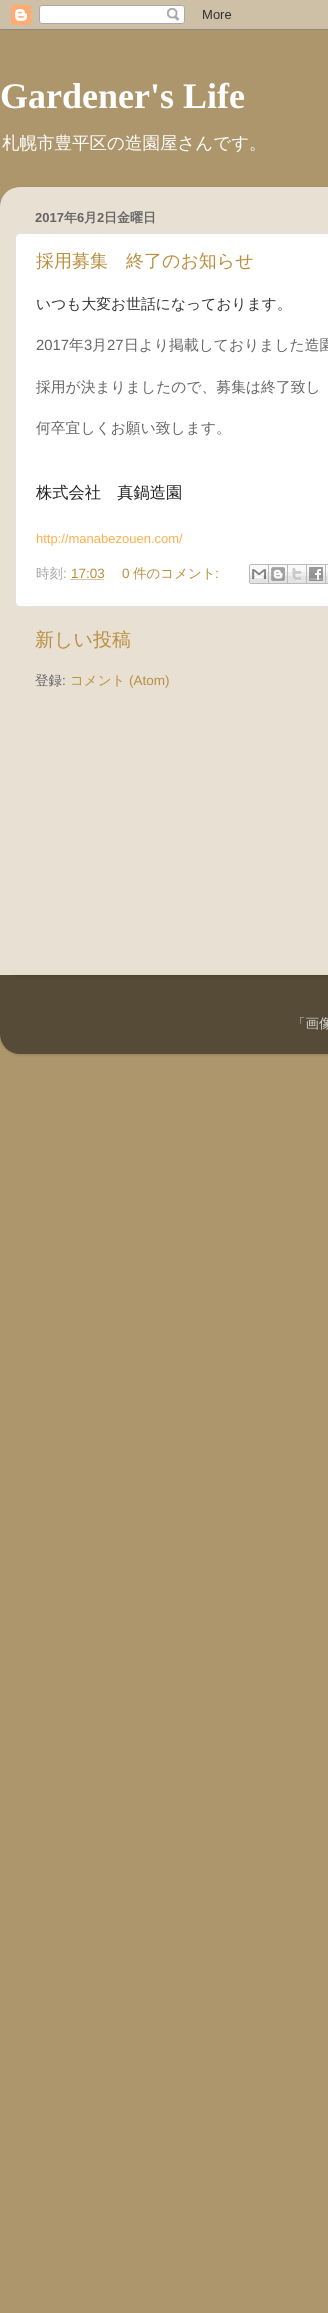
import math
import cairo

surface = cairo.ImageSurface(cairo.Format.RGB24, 328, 2313)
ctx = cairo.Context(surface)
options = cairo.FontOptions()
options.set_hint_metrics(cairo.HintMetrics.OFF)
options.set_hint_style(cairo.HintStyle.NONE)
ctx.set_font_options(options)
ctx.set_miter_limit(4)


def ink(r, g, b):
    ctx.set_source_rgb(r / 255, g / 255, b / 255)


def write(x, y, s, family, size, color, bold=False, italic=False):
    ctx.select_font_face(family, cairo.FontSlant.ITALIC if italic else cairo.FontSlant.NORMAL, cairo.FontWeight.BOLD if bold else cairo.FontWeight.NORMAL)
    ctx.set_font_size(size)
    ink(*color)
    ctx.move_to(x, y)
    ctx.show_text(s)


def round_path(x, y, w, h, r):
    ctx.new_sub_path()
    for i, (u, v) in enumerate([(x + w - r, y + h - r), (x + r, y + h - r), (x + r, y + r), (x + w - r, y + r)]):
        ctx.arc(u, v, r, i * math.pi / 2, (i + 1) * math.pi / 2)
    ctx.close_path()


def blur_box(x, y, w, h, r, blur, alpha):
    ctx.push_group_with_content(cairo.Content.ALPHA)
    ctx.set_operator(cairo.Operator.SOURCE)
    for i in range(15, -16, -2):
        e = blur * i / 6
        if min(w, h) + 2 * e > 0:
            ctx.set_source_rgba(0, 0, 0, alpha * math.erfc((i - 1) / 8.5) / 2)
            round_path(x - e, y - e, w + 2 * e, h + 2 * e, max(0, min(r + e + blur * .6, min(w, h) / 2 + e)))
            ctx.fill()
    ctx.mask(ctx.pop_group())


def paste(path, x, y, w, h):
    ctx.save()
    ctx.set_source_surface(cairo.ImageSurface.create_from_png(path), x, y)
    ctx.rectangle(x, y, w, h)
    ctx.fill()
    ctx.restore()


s1 = dict(family="Liberation Serif", size=36, color=(255, 255, 255), bold=True)
s2 = dict(family="WenQuanYi Zen Hei Medium", size=17.5, color=(255, 255, 255))
s3 = dict(family="Liberation Sans", size=13, color=(100, 100, 100), bold=True)
s4 = dict(family="WenQuanYi Zen Hei", size=13, color=(100, 100, 100), bold=True)
s5 = dict(family="WenQuanYi Zen Hei Medium", size=18, color=(186, 142, 62))
s6 = dict(family="WenQuanYi Zen Hei Medium", size=14.8, color=(51, 51, 51))
s7 = dict(family="Liberation Sans", size=14.8, color=(100, 100, 100))
s8 = dict(family="WenQuanYi Zen Hei Medium", size=14.8, color=(100, 100, 100))
s9 = dict(family="WenQuanYi Zen Hei Medium", size=16.25, color=(34, 34, 34))
s10 = dict(family="Liberation Sans", size=13, color=(255, 175, 74))
s11 = dict(family="WenQuanYi Zen Hei Medium", size=13.5, color=(164, 164, 164))
s12 = dict(family="Liberation Sans", size=13.5, color=(164, 164, 164))
s13 = dict(family="Liberation Sans", size=13.5, color=(186, 142, 62))
s14 = dict(family="WenQuanYi Zen Hei Medium", size=13.5, color=(186, 142, 62))
s15 = dict(family="WenQuanYi Zen Hei Medium", size=19, color=(186, 142, 62))
s16 = dict(family="WenQuanYi Zen Hei Medium", size=13.5, color=(100, 100, 100))
s17 = dict(family="Liberation Sans", size=13.5, color=(100, 100, 100))
s18 = dict(family="WenQuanYi Zen Hei Medium", size=13.5, color=(210, 210, 210))

ink(173, 150, 108)
ctx.paint()
paste("pic1.png", 0, 0, 328, 30)
write(0, 108, "Gardener's Life", **s1)
write(2, 149, "札幌市豊平区の造園屋さんです。", **s2)
ctx.save()
ctx.set_fill_rule(cairo.FillRule.EVEN_ODD)
ctx.new_path()
ctx.move_to(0, 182)
ctx.line_to(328, 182)
ctx.line_to(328, 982)
ctx.line_to(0, 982)
ctx.close_path()
ctx.move_to(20, 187)
ctx.line_to(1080, 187)
ctx.curve_to(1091, 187, 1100, 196, 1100, 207)
ctx.line_to(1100, 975)
ctx.line_to(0, 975)
ctx.line_to(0, 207)
ctx.curve_to(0, 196, 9, 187, 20, 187)
ctx.close_path()
ctx.clip()
ink(0, 0, 0)
blur_box(0, 188, 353, 788, 20, 1.5, 0.15)
ctx.restore()
paste("pic2.png", 0, 187, 328, 788)
write(35, 222, "2017", **s3)
write(64, 222, "年", **s4)
write(77, 222, "6", **s3)
write(84, 222, "月", **s4)
write(97, 222, "2", **s3)
write(104, 222, "日金曜日", **s4)
ink(255, 255, 255)
round_path(15.5, 233.5, 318, 373, 4.5)
ctx.fill_preserve()
ink(226, 226, 226)
ctx.set_line_width(1)
ctx.stroke()
write(36, 267, "採用募集　終了のお知らせ", **s5)
write(36, 309, "いつも大変お世話になっております。", **s6)
write(36, 350, "2017", **s7)
write(69, 350, "年", **s8)
write(84, 350, "3", **s7)
write(92, 350, "月", **s8)
write(107, 350, "27", **s7)
write(124, 350, "日より掲載しておりました造園", **s8)
write(36, 392, "採用が決まりましたので、募集は終了致し", **s8)
write(36, 433, "何卒宜しくお願い致します。", **s8)
write(36, 498, "株式会社　真鍋造園", **s9)
write(36, 543, "http://manabezouen.com/", **s10)
write(36, 578, "時刻", **s11)
write(63, 578, ":", **s12)
write(71, 578, "17:03", **s13)
ctx.new_path()
ctx.move_to(70.5, 579.5)
ctx.line_to(104.5, 579.5)
ctx.set_dash([1, 1])
ctx.stroke()
write(122, 578, "0", **s13)
write(133, 578, "件のコメント", **s14)
write(215, 578, ":", **s13)
paste("pic3.png", 249, 564, 20, 20)
paste("pic4.png", 269, 564, 19, 20)
paste("pic5.png", 288, 564, 19, 20)
paste("pic6.png", 307, 564, 19, 20)
paste("pic7.png", 326, 564, 2, 20)
write(35, 646, "新しい投稿", **s15)
write(35, 685, "登録", **s16)
write(62, 685, ":", **s17)
write(70, 685, "コメント", **s14)
write(129, 685, "(Atom)", **s13)
ctx.save()
ctx.set_fill_rule(cairo.FillRule.EVEN_ODD)
ctx.new_path()
ctx.move_to(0, 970)
ctx.line_to(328, 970)
ctx.line_to(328, 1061)
ctx.line_to(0, 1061)
ctx.close_path()
ctx.move_to(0, 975)
ctx.line_to(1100, 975)
ctx.line_to(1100, 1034)
ctx.curve_to(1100, 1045, 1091, 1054, 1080, 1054)
ctx.line_to(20, 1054)
ctx.curve_to(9, 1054, 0, 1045, 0, 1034)
ctx.close_path()
ctx.clip()
ink(0, 0, 0)
blur_box(0, 976, 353, 79, 20, 1.5, 0.15)
ctx.restore()
paste("pic8.png", 0, 975, 328, 79)
write(292, 1028, "「画像", **s18)
surface.write_to_png("screenshot.png")
